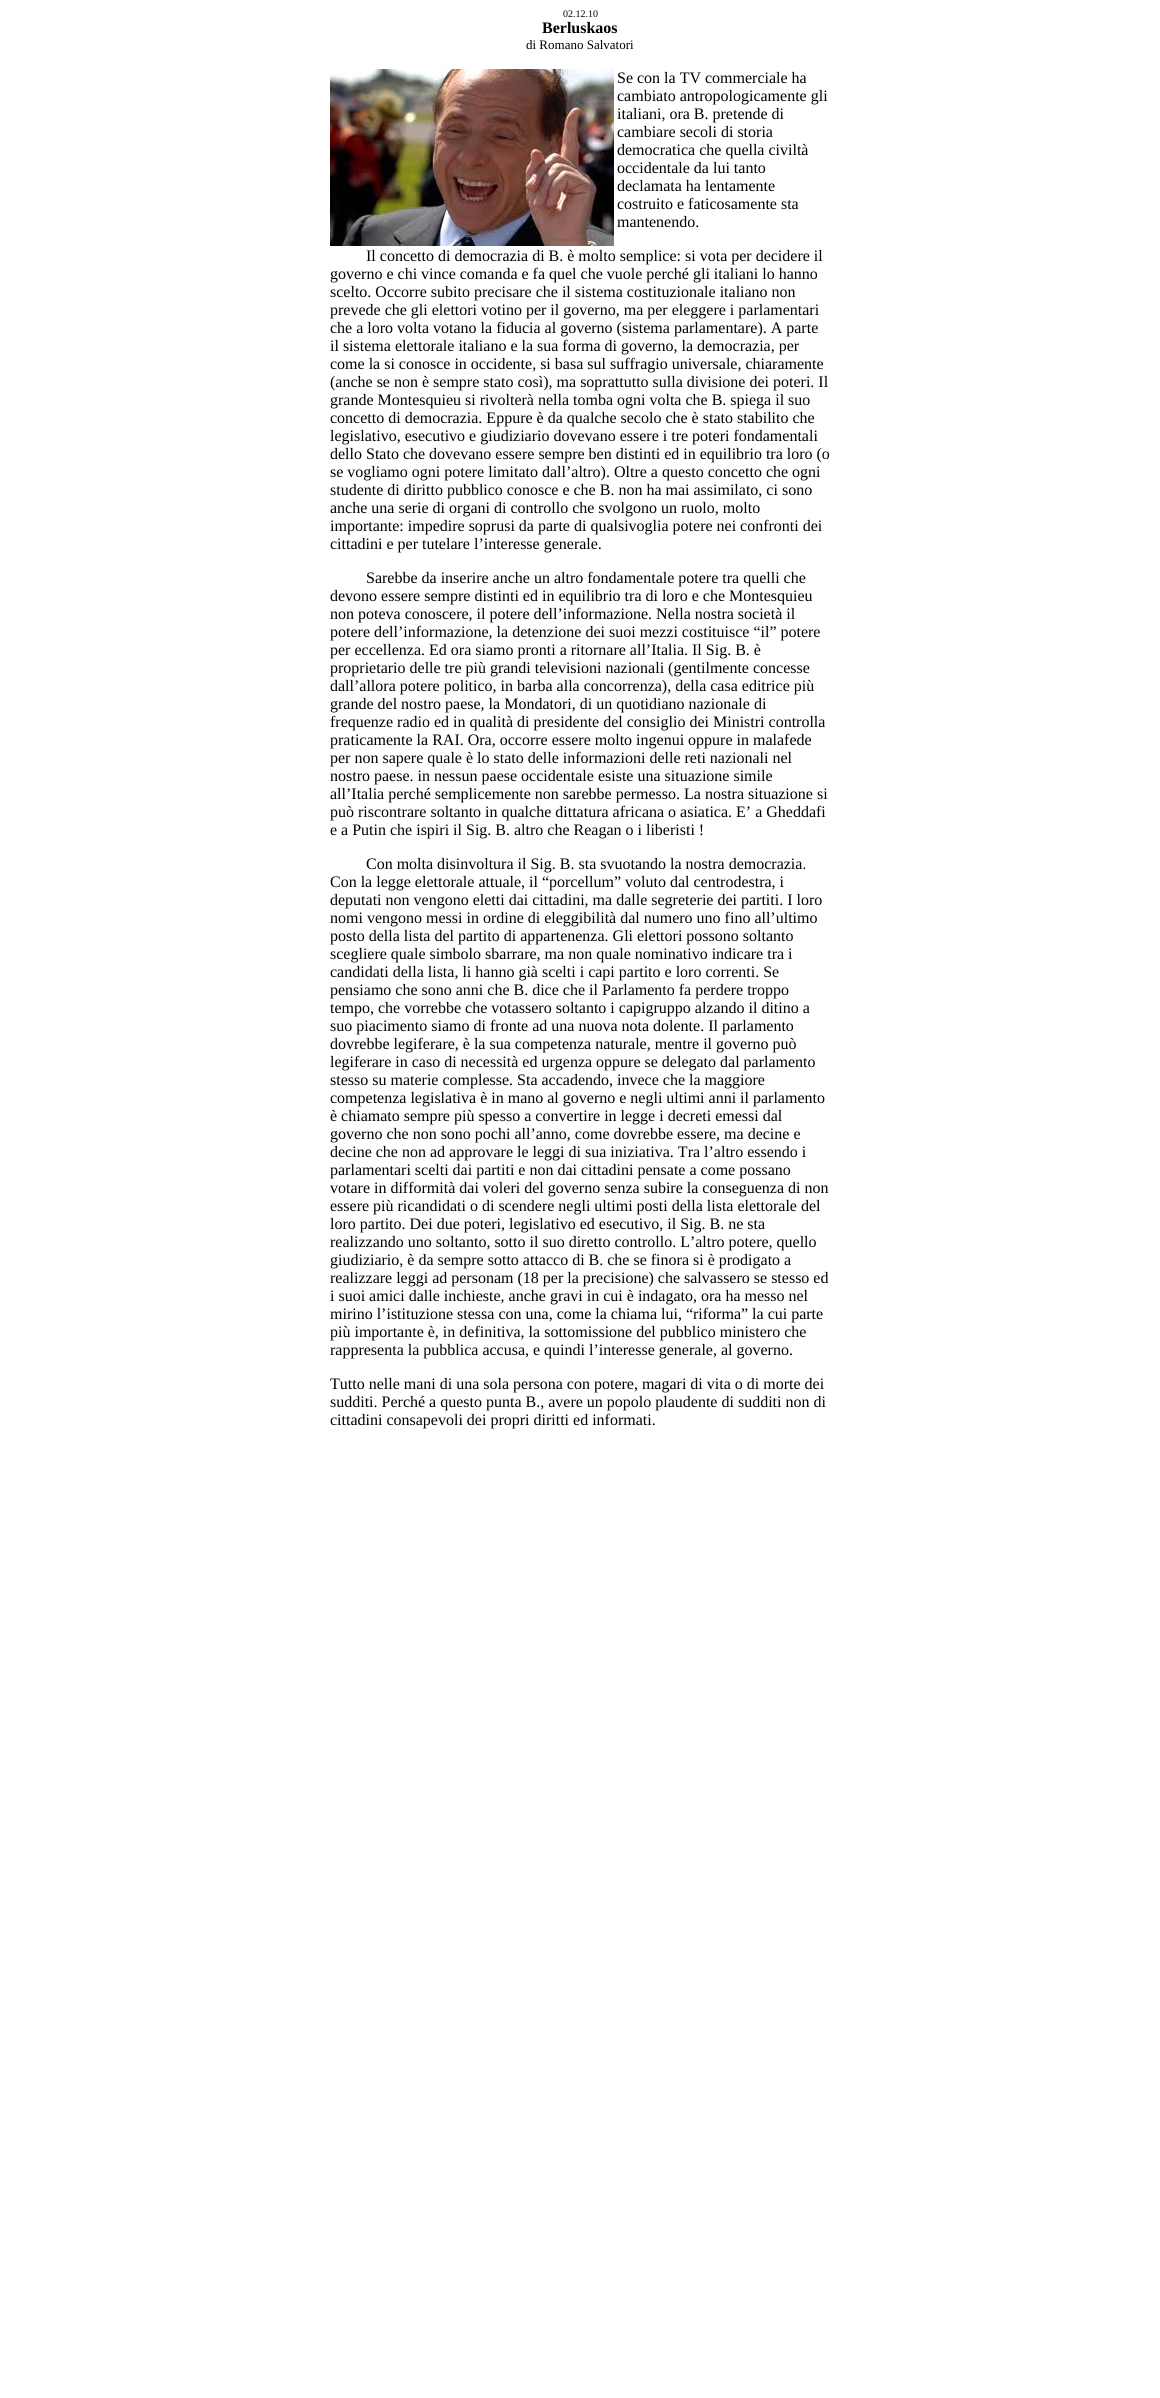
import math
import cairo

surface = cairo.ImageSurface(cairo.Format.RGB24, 1160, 2398)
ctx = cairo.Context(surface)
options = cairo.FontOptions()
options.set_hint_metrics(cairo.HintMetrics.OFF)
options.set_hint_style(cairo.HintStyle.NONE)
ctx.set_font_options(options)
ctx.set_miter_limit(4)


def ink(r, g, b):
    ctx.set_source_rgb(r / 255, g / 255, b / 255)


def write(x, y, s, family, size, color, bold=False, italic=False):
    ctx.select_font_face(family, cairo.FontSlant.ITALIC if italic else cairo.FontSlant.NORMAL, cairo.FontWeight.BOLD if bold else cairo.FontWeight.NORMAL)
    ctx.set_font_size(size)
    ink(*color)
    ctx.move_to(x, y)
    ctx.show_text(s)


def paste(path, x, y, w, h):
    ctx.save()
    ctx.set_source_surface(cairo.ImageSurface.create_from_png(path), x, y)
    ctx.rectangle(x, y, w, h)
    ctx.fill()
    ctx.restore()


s1 = dict(family="Liberation Serif", size=10, color=(0, 0, 0))
s2 = dict(family="Liberation Serif", size=16, color=(0, 0, 0), bold=True)
s3 = dict(family="Liberation Serif", size=13, color=(0, 0, 0))
s4 = dict(family="Liberation Serif", size=16, color=(0, 0, 0))

ink(255, 255, 255)
ctx.paint()
write(563, 17, "02.12.10", **s1)
write(542, 33, "Berluskaos", **s2)
write(526, 49, "di Romano Salvatori", **s3)
paste("pic1.png", 330, 69, 284, 177)
write(617, 83, "Se con la TV commerciale ha", **s4)
write(617, 101, "cambiato antropologicamente gli", **s4)
write(617, 119, "italiani, ora B. pretende di", **s4)
write(617, 137, "cambiare secoli di storia", **s4)
write(617, 155, "democratica che quella civiltà", **s4)
write(617, 173, "occidentale da lui tanto", **s4)
write(617, 191, "declamata ha lentamente", **s4)
write(617, 209, "costruito e faticosamente sta", **s4)
write(617, 227, "mantenendo.", **s4)
write(366, 261, "Il concetto di democrazia di B. è molto semplice: si vota per decidere il", **s4)
write(330, 279, "governo e chi vince comanda e fa quel che vuole perché gli italiani lo hanno", **s4)
write(330, 297, "scelto. Occorre subito precisare che il sistema costituzionale italiano non", **s4)
write(330, 315, "prevede che gli elettori votino per il governo, ma per eleggere i parlamentari", **s4)
write(330, 333, "che a loro volta votano la fiducia al governo (sistema parlamentare). A parte", **s4)
write(330, 351, "il sistema elettorale italiano e la sua forma di governo, la democrazia, per", **s4)
write(330, 369, "come la si conosce in occidente, si basa sul suffragio universale, chiaramente", **s4)
write(330, 387, "(anche se non è sempre stato così), ma soprattutto sulla divisione dei poteri. Il", **s4)
write(330, 405, "grande Montesquieu si rivolterà nella tomba ogni volta che B. spiega il suo", **s4)
write(330, 423, "concetto di democrazia. Eppure è da qualche secolo che è stato stabilito che", **s4)
write(330, 441, "legislativo, esecutivo e giudiziario dovevano essere i tre poteri fondamentali", **s4)
write(330, 459, "dello Stato che dovevano essere sempre ben distinti ed in equilibrio tra loro (o", **s4)
write(330, 477, "se vogliamo ogni potere limitato dall’altro). Oltre a questo concetto che ogni", **s4)
write(330, 495, "studente di diritto pubblico conosce e che B. non ha mai assimilato, ci sono", **s4)
write(330, 513, "anche una serie di organi di controllo che svolgono un ruolo, molto", **s4)
write(330, 531, "importante: impedire soprusi da parte di qualsivoglia potere nei confronti dei", **s4)
write(330, 549, "cittadini e per tutelare l’interesse generale.", **s4)
write(366, 583, "Sarebbe da inserire anche un altro fondamentale potere tra quelli che", **s4)
write(330, 601, "devono essere sempre distinti ed in equilibrio tra di loro e che Montesquieu", **s4)
write(330, 619, "non poteva conoscere, il potere dell’informazione. Nella nostra società il", **s4)
write(330, 637, "potere dell’informazione, la detenzione dei suoi mezzi costituisce “il” potere", **s4)
write(330, 655, "per eccellenza. Ed ora siamo pronti a ritornare all’Italia. Il Sig. B. è", **s4)
write(330, 673, "proprietario delle tre più grandi televisioni nazionali (gentilmente concesse", **s4)
write(330, 691, "dall’allora potere politico, in barba alla concorrenza), della casa editrice più", **s4)
write(330, 709, "grande del nostro paese, la Mondatori, di un quotidiano nazionale di", **s4)
write(330, 727, "frequenze radio ed in qualità di presidente del consiglio dei Ministri controlla", **s4)
write(330, 745, "praticamente la RAI. Ora, occorre essere molto ingenui oppure in malafede", **s4)
write(330, 763, "per non sapere quale è lo stato delle informazioni delle reti nazionali nel", **s4)
write(330, 781, "nostro paese. in nessun paese occidentale esiste una situazione simile", **s4)
write(330, 799, "all’Italia perché semplicemente non sarebbe permesso. La nostra situazione si", **s4)
write(330, 817, "può riscontrare soltanto in qualche dittatura africana o asiatica. E’ a Gheddafi", **s4)
write(330, 835, "e a Putin che ispiri il Sig. B. altro che Reagan o i liberisti !", **s4)
write(366, 869, "Con molta disinvoltura il Sig. B. sta svuotando la nostra democrazia.", **s4)
write(330, 887, "Con la legge elettorale attuale, il “porcellum” voluto dal centrodestra, i", **s4)
write(330, 905, "deputati non vengono eletti dai cittadini, ma dalle segreterie dei partiti. I loro", **s4)
write(330, 923, "nomi vengono messi in ordine di eleggibilità dal numero uno fino all’ultimo", **s4)
write(330, 941, "posto della lista del partito di appartenenza. Gli elettori possono soltanto", **s4)
write(330, 959, "scegliere quale simbolo sbarrare, ma non quale nominativo indicare tra i", **s4)
write(330, 977, "candidati della lista, li hanno già scelti i capi partito e loro correnti. Se", **s4)
write(330, 995, "pensiamo che sono anni che B. dice che il Parlamento fa perdere troppo", **s4)
write(330, 1013, "tempo, che vorrebbe che votassero soltanto i capigruppo alzando il ditino a", **s4)
write(330, 1031, "suo piacimento siamo di fronte ad una nuova nota dolente. Il parlamento", **s4)
write(330, 1049, "dovrebbe legiferare, è la sua competenza naturale, mentre il governo può", **s4)
write(330, 1067, "legiferare in caso di necessità ed urgenza oppure se delegato dal parlamento", **s4)
write(330, 1085, "stesso su materie complesse. Sta accadendo, invece che la maggiore", **s4)
write(330, 1103, "competenza legislativa è in mano al governo e negli ultimi anni il parlamento", **s4)
write(330, 1121, "è chiamato sempre più spesso a convertire in legge i decreti emessi dal", **s4)
write(330, 1139, "governo che non sono pochi all’anno, come dovrebbe essere, ma decine e", **s4)
write(330, 1157, "decine che non ad approvare le leggi di sua iniziativa. Tra l’altro essendo i", **s4)
write(330, 1175, "parlamentari scelti dai partiti e non dai cittadini pensate a come possano", **s4)
write(330, 1193, "votare in difformità dai voleri del governo senza subire la conseguenza di non", **s4)
write(330, 1211, "essere più ricandidati o di scendere negli ultimi posti della lista elettorale del", **s4)
write(330, 1229, "loro partito. Dei due poteri, legislativo ed esecutivo, il Sig. B. ne sta", **s4)
write(330, 1247, "realizzando uno soltanto, sotto il suo diretto controllo. L’altro potere, quello", **s4)
write(330, 1265, "giudiziario, è da sempre sotto attacco di B. che se finora si è prodigato a", **s4)
write(330, 1283, "realizzare leggi ad personam (18 per la precisione) che salvassero se stesso ed", **s4)
write(330, 1301, "i suoi amici dalle inchieste, anche gravi in cui è indagato, ora ha messo nel", **s4)
write(330, 1319, "mirino l’istituzione stessa con una, come la chiama lui, “riforma” la cui parte", **s4)
write(330, 1337, "più importante è, in definitiva, la sottomissione del pubblico ministero che", **s4)
write(330, 1355, "rappresenta la pubblica accusa, e quindi l’interesse generale, al governo.", **s4)
write(330, 1389, "Tutto nelle mani di una sola persona con potere, magari di vita o di morte dei", **s4)
write(330, 1407, "sudditi. Perché a questo punta B., avere un popolo plaudente di sudditi non di", **s4)
write(330, 1425, "cittadini consapevoli dei propri diritti ed informati.", **s4)
surface.write_to_png("screenshot.png")
